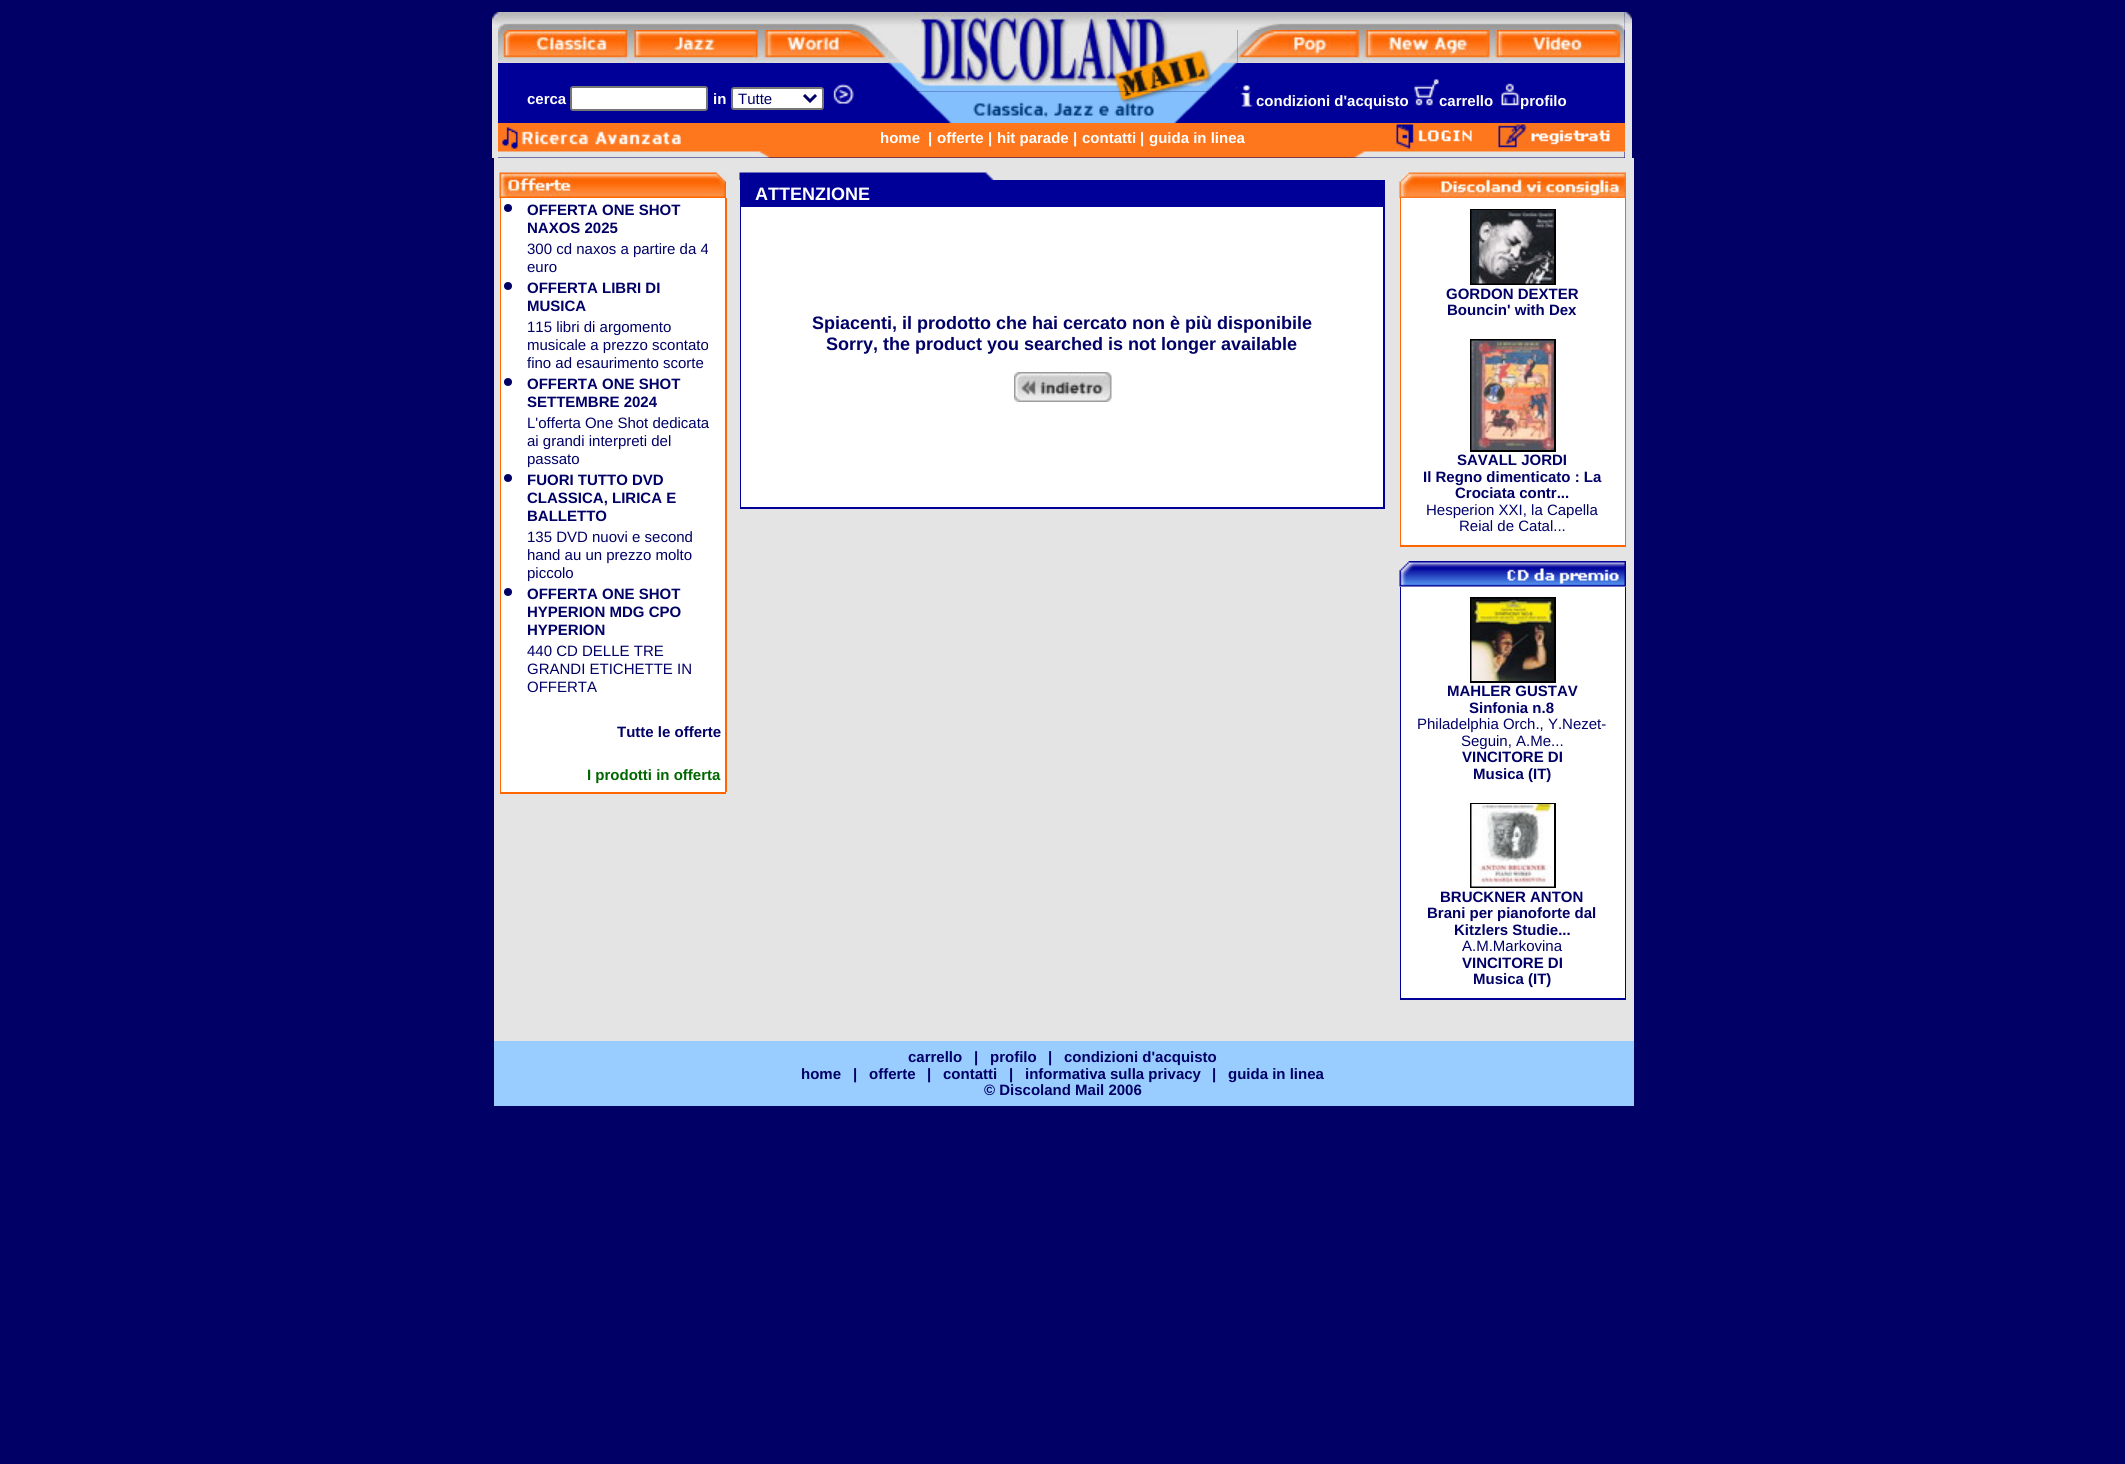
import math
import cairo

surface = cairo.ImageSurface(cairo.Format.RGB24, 2125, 1464)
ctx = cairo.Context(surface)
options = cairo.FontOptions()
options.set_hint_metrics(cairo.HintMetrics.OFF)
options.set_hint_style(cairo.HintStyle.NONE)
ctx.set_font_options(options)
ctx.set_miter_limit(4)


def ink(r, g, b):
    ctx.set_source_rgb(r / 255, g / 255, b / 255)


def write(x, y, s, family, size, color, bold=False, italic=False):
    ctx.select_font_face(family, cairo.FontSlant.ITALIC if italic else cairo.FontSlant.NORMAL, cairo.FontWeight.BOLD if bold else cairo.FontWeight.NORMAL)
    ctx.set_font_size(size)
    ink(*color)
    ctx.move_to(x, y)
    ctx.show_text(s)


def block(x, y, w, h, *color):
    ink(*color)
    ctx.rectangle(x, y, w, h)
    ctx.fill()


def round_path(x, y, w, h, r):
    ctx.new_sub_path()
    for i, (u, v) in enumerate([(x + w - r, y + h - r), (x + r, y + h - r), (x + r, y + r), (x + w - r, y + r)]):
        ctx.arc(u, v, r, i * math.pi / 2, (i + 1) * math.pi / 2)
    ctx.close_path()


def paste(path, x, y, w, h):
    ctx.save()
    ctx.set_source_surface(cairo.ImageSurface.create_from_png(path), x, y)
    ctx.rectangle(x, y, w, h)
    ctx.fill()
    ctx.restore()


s1 = dict(family="Liberation Sans", size=15, color=(255, 255, 255), bold=True)
s2 = dict(family="Liberation Sans", size=15, color=(0, 0, 102))
s3 = dict(family="Liberation Sans", size=15, color=(0, 0, 102), bold=True)
s4 = dict(family="Liberation Sans", size=15, color=(0, 102, 0), bold=True)
s5 = dict(family="Liberation Sans", size=18, color=(255, 255, 255), bold=True)
s6 = dict(family="Liberation Sans", size=18, color=(0, 0, 102), bold=True)

ink(0, 0, 102)
ctx.paint()
paste("pic1.png", 492, 12, 420, 18)
paste("pic2.png", 912, 12, 300, 80)
paste("pic3.png", 1212, 12, 413, 18)
paste("pic4.png", 1624, 12, 8, 18)
block(492, 30, 6, 128, 228, 228, 228)
paste("pic5.png", 498, 30, 132, 33)
paste("pic6.png", 630, 30, 132, 33)
paste("pic7.png", 762, 30, 126, 33)
paste("pic8.png", 888, 30, 24, 93)
paste("pic9.png", 1212, 30, 26, 93)
paste("pic10.png", 1237, 30, 125, 33)
paste("pic11.png", 1362, 30, 132, 33)
paste("pic12.png", 1494, 30, 131, 33)
block(1625, 30, 7, 128, 228, 228, 228)
paste("pic13.png", 912, 91, 300, 32)
block(498, 63, 390, 60, 0, 0, 153)
write(527, 104, "cerca", **s1)
round_path(571, 87, 136, 23, 2)
ctx.fill_preserve()
ink(118, 118, 118)
ctx.stroke()
write(713, 104, "in", **s1)
round_path(732, 88, 91, 21, 2)
ctx.fill_preserve()
ink(118, 118, 118)
ctx.stroke()
ctx.new_path()
ctx.move_to(804, 95)
ctx.line_to(810, 101)
ctx.line_to(816, 95)
ink(0, 0, 102)
ctx.set_line_width(3)
ctx.stroke()
write(738, 104, "Tutte", **s2)
paste("pic14.png", 833, 83, 21, 21)
block(1238, 63, 387, 60, 0, 0, 153)
paste("pic15.png", 1237, 85, 16, 22)
write(1256, 106, "condizioni d'acquisto", **s1)
paste("pic16.png", 1414, 79, 25, 27)
write(1439, 106, "carrello", **s1)
paste("pic17.png", 1501, 83, 19, 23)
write(1520, 106, "profilo", **s1)
block(498, 123, 1127, 29, 255, 119, 29)
paste("pic18.png", 502, 127, 179, 22)
write(880, 143, "home", **s1)
write(928, 143, "|", **s1)
write(937, 143, "offerte", **s1)
write(988, 143, "|", **s1)
write(997, 143, "hit parade", **s1)
write(1073, 143, "|", **s1)
write(1082, 143, "contatti", **s1)
write(1140, 143, "|", **s1)
write(1149, 143, "guida in linea", **s1)
paste("pic19.png", 1396, 124, 76, 25)
paste("pic20.png", 1498, 124, 112, 24)
paste("pic21.png", 498, 151, 1127, 7)
block(494, 158, 1140, 883, 228, 228, 228)
paste("pic22.png", 499, 172, 227, 26)
block(500, 198, 1, 594, 255, 102, 0)
block(501, 198, 224, 594, 255, 255, 255)
ink(0, 0, 102)
ctx.arc(508, 208, 4, 0, 2 * math.pi)
ctx.fill()
write(527, 215, "OFFERTA ONE SHOT", **s3)
write(527, 233, "NAXOS 2025", **s3)
write(527, 254, "300 cd naxos a partire da 4", **s2)
write(527, 272, "euro", **s2)
ctx.new_path()
ctx.arc(508, 286, 4, 0, 2 * math.pi)
ctx.fill()
write(527, 293, "OFFERTA LIBRI DI", **s3)
write(527, 311, "MUSICA", **s3)
write(527, 332, "115 libri di argomento", **s2)
write(527, 350, "musicale a prezzo scontato", **s2)
write(527, 368, "fino ad esaurimento scorte", **s2)
ctx.new_path()
ctx.arc(508, 382, 4, 0, 2 * math.pi)
ctx.fill()
write(527, 389, "OFFERTA ONE SHOT", **s3)
write(527, 407, "SETTEMBRE 2024", **s3)
write(527, 428, "L'offerta One Shot dedicata", **s2)
write(527, 446, "ai grandi interpreti del", **s2)
write(527, 464, "passato", **s2)
ctx.new_path()
ctx.arc(508, 478, 4, 0, 2 * math.pi)
ctx.fill()
write(527, 485, "FUORI TUTTO DVD", **s3)
write(527, 503, "CLASSICA, LIRICA E", **s3)
write(527, 521, "BALLETTO", **s3)
write(527, 542, "135 DVD nuovi e second", **s2)
write(527, 560, "hand au un prezzo molto", **s2)
write(527, 578, "piccolo", **s2)
ctx.new_path()
ctx.arc(508, 592, 4, 0, 2 * math.pi)
ctx.fill()
write(527, 599, "OFFERTA ONE SHOT", **s3)
write(527, 617, "HYPERION MDG CPO", **s3)
write(527, 635, "HYPERION", **s3)
write(527, 656, "440 CD DELLE TRE", **s2)
write(527, 674, "GRANDI ETICHETTE IN", **s2)
write(527, 692, "OFFERTA", **s2)
block(725, 198, 2, 594, 255, 102, 0)
write(617, 737, "Tutte le offerte", **s3)
write(587, 780, "I prodotti in offerta", **s4)
block(500, 792, 226, 2, 255, 102, 0)
paste("pic23.png", 739, 172, 255, 8)
block(740, 180, 645, 27, 0, 0, 153)
write(755, 200, "ATTENZIONE", **s5)
block(740, 207, 1, 300, 0, 0, 153)
block(741, 207, 642, 300, 255, 255, 255)
write(812, 329, "Spiacenti, il prodotto che hai cercato non è più disponibile", **s6)
write(826, 350, "Sorry, the product you searched is not longer available", **s6)
paste("pic24.png", 1014, 372, 98, 30)
block(1383, 207, 2, 300, 0, 0, 153)
block(740, 507, 645, 2, 0, 0, 153)
paste("pic25.png", 1399, 172, 227, 26)
block(1400, 198, 1, 347, 255, 102, 0)
block(1401, 198, 224, 347, 255, 255, 255)
ctx.rectangle(1471, 210, 84, 74)
ink(0, 0, 0)
ctx.set_line_width(2)
ctx.stroke()
paste("pic26.png", 1471, 210, 83, 74)
write(1446, 299, "GORDON DEXTER", **s3)
write(1447, 315, "Bouncin' with Dex", **s3)
block(1625, 198, 1, 347, 255, 102, 0)
ctx.rectangle(1471, 340, 84, 111)
ink(0, 0, 0)
ctx.stroke()
paste("pic27.png", 1471, 340, 83, 110)
write(1457, 465, "SAVALL JORDI", **s3)
write(1423, 482, "Il Regno dimenticato : La", **s3)
write(1455, 498, "Crociata contr...", **s3)
write(1426, 515, "Hesperion XXI, la Capella", **s2)
write(1459, 531, "Reial de Catal...", **s2)
block(1400, 545, 226, 2, 255, 102, 0)
paste("pic28.png", 1399, 561, 227, 26)
block(1400, 587, 1, 411, 0, 0, 153)
block(1401, 587, 224, 411, 255, 255, 255)
ctx.rectangle(1471, 598, 84, 84)
ink(0, 0, 0)
ctx.stroke()
paste("pic29.png", 1471, 598, 83, 83)
write(1447, 696, "MAHLER GUSTAV", **s3)
write(1469, 713, "Sinfonia n.8", **s3)
write(1417, 729, "Philadelphia Orch., Y.Nezet-", **s2)
write(1461, 746, "Seguin, A.Me...", **s2)
write(1462, 762, "VINCITORE DI", **s3)
write(1473, 779, "Musica (IT)", **s3)
block(1625, 587, 1, 411, 0, 0, 153)
ctx.rectangle(1471, 804, 84, 83)
ink(0, 0, 0)
ctx.stroke()
paste("pic30.png", 1471, 804, 83, 83)
write(1440, 902, "BRUCKNER ANTON", **s3)
write(1427, 918, "Brani per pianoforte dal", **s3)
write(1454, 935, "Kitzlers Studie...", **s3)
write(1462, 951, "A.M.Markovina", **s2)
write(1462, 968, "VINCITORE DI", **s3)
write(1473, 984, "Musica (IT)", **s3)
block(1400, 998, 226, 2, 0, 0, 153)
block(494, 1041, 1140, 65, 153, 204, 255)
write(908, 1062, "carrello", **s3)
write(974, 1062, "|", **s3)
write(990, 1062, "profilo", **s3)
write(1048, 1062, "|", **s3)
write(1064, 1062, "condizioni d'acquisto", **s3)
write(801, 1079, "home", **s3)
write(853, 1079, "|", **s3)
write(869, 1079, "offerte", **s3)
write(927, 1079, "|", **s3)
write(943, 1079, "contatti", **s3)
write(1009, 1079, "|", **s3)
write(1025, 1079, "informativa sulla privacy", **s3)
write(1212, 1079, "|", **s3)
write(1228, 1079, "guida in linea", **s3)
write(984, 1095, "© Discoland Mail 2006", **s3)
surface.write_to_png("screenshot.png")
